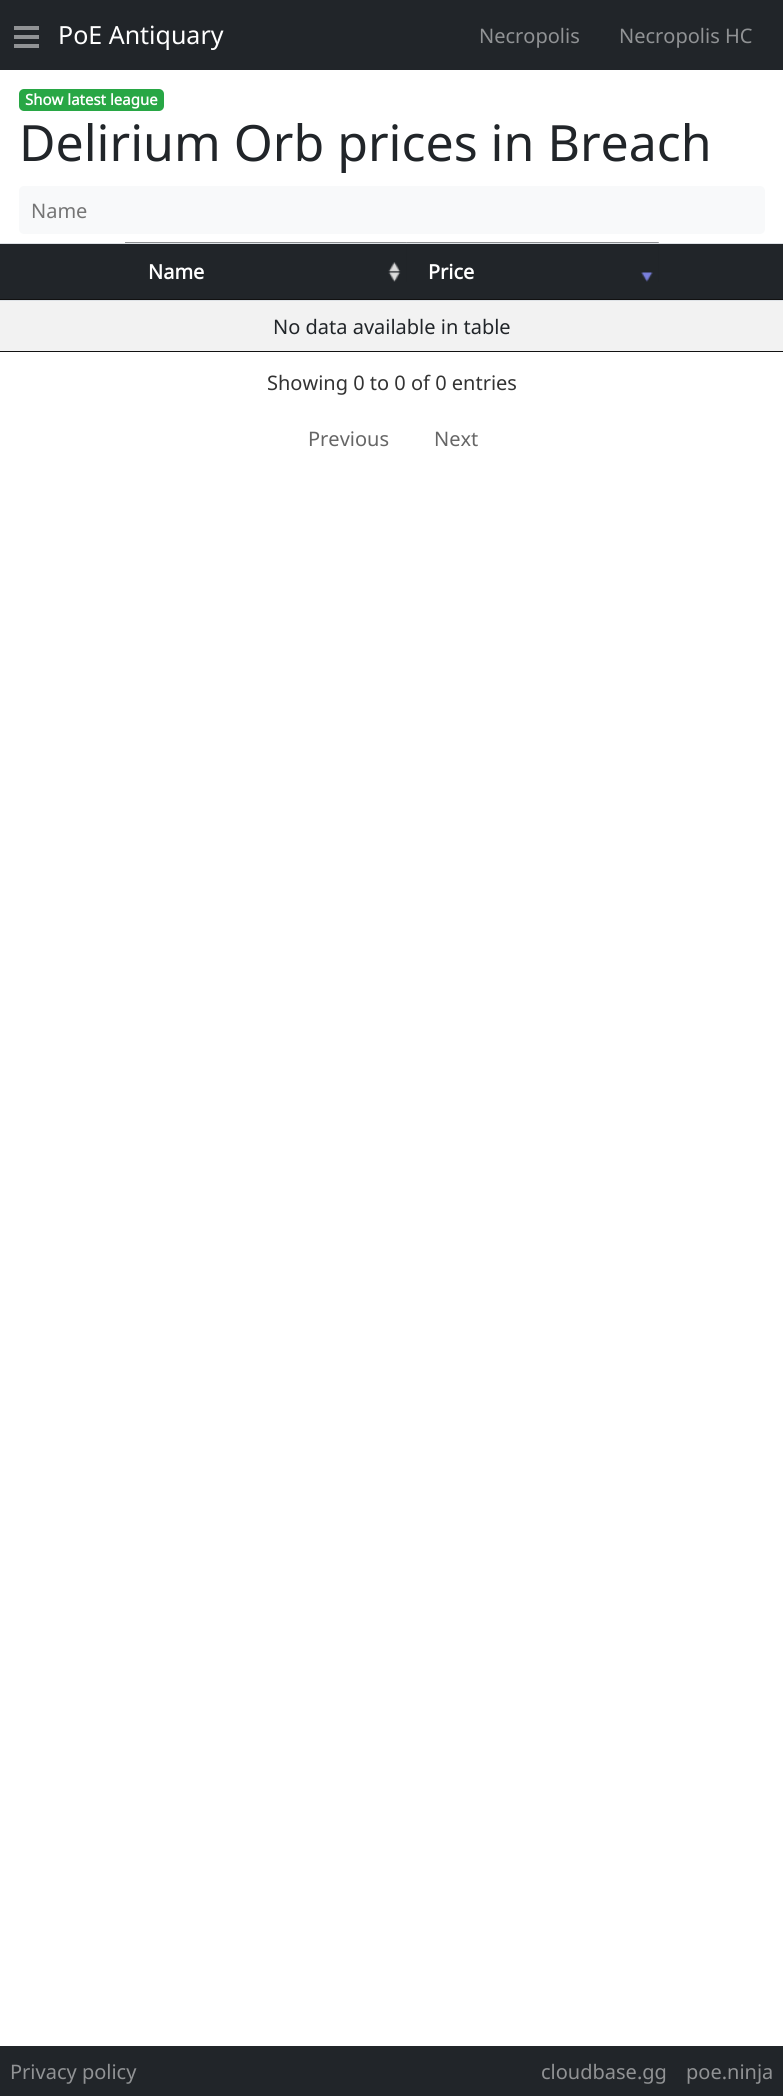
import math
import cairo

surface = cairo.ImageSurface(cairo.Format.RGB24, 783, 2096)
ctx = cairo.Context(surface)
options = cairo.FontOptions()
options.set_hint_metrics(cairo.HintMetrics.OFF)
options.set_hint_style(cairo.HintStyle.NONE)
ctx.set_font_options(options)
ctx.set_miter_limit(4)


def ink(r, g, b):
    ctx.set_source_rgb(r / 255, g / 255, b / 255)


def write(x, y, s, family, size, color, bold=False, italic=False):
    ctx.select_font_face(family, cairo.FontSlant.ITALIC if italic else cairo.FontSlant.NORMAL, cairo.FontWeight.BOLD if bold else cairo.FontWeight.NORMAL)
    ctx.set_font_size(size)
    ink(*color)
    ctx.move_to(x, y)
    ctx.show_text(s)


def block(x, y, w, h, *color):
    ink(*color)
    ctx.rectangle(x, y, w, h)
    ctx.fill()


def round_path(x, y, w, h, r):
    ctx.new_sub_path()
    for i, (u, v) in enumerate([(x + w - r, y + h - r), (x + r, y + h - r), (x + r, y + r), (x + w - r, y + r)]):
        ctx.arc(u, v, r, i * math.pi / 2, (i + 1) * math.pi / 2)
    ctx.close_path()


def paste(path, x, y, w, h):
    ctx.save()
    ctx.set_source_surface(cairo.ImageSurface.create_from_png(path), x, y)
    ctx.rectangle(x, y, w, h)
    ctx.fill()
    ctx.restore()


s1 = dict(family="Noto Sans", size=25, color=(255, 255, 255))
s2 = dict(family="Noto Sans", size=20, color=(144, 146, 148))
s3 = dict(family="Noto Sans", size=15, color=(255, 255, 255), bold=True)
s4 = dict(family="Noto Sans", size=50, color=(33, 37, 41))
s5 = dict(family="Noto Sans", size=20, color=(117, 117, 117))
s6 = dict(family="Noto Sans", size=20, color=(255, 255, 255), bold=True)
s7 = dict(family="Noto Sans", size=20, color=(33, 37, 41))
s8 = dict(family="Noto Sans", size=20, color=(51, 51, 51))
s9 = dict(family="Noto Sans", size=20, color=(102, 102, 102))

ink(255, 255, 255)
ctx.paint()
block(0, 0, 783, 70, 33, 37, 41)
block(14, 26, 25, 4, 144, 146, 148)
block(14, 35, 25, 4, 144, 146, 148)
block(14, 44, 25, 4, 144, 146, 148)
write(58, 44, "PoE Antiquary", **s1)
write(479, 43, "Necropolis", **s2)
write(619, 43, "Necropolis HC", **s2)
ink(40, 167, 69)
round_path(19, 89, 145, 22, 5)
ctx.fill()
write(25, 105, "Show latest league", **s3)
write(19, 161, "Delirium Orb prices in Breach", **s4)
ink(248, 249, 250)
round_path(19, 186, 746, 48, 5)
ctx.fill()
write(31, 218, "Name", **s5)
block(0, 351, 783, 1, 17, 17, 17)
block(0, 244, 783, 55, 33, 37, 41)
block(0, 243, 125, 1, 222, 226, 230)
block(0, 299, 783, 1, 17, 17, 17)
paste("pic1.png", 125, 242, 282, 40)
block(125, 243, 281, 1, 222, 226, 230)
write(148, 279, "Name", **s6)
paste("pic2.png", 406, 242, 253, 40)
block(406, 243, 377, 1, 222, 226, 230)
write(428, 279, "Price", **s6)
block(0, 301, 783, 50, 242, 242, 242)
block(0, 300, 783, 1, 222, 226, 230)
write(273, 334, "No data available in table", **s7)
write(267, 390, "Showing 0 to 0 of 0 entries", **s8)
write(308, 446, "Previous", **s9)
write(434, 446, "Next", **s9)
block(0, 2046, 783, 50, 33, 37, 41)
write(10, 2079, "Privacy policy", **s2)
write(541, 2079, "cloudbase.gg", **s2)
write(686, 2079, "poe.ninja", **s2)
surface.write_to_png("screenshot.png")
